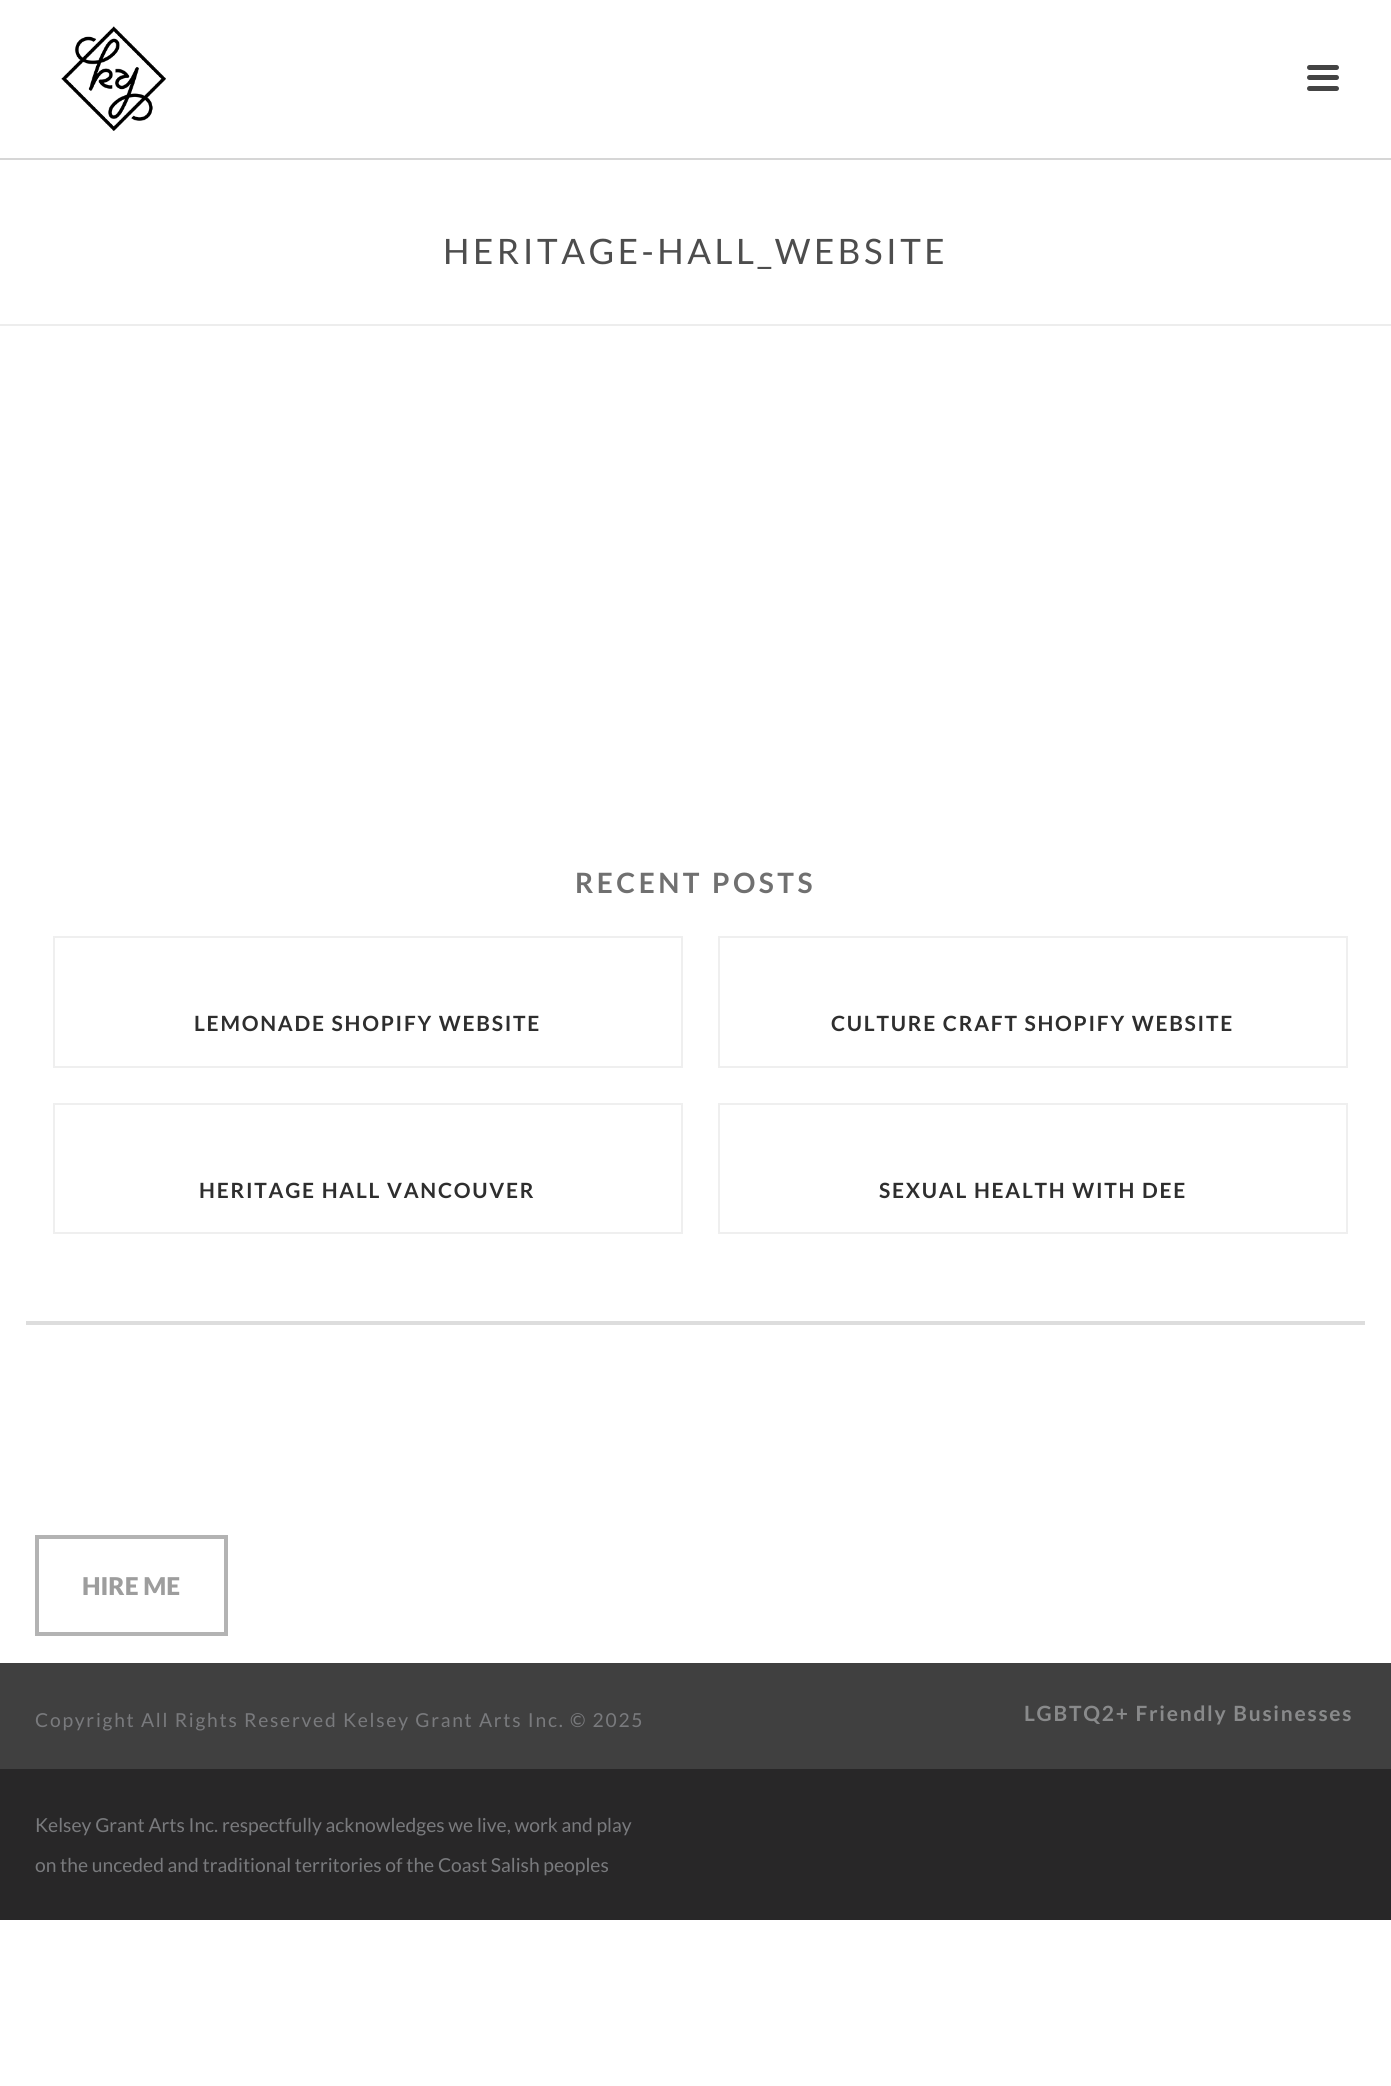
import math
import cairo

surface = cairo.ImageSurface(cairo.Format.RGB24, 1391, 2086)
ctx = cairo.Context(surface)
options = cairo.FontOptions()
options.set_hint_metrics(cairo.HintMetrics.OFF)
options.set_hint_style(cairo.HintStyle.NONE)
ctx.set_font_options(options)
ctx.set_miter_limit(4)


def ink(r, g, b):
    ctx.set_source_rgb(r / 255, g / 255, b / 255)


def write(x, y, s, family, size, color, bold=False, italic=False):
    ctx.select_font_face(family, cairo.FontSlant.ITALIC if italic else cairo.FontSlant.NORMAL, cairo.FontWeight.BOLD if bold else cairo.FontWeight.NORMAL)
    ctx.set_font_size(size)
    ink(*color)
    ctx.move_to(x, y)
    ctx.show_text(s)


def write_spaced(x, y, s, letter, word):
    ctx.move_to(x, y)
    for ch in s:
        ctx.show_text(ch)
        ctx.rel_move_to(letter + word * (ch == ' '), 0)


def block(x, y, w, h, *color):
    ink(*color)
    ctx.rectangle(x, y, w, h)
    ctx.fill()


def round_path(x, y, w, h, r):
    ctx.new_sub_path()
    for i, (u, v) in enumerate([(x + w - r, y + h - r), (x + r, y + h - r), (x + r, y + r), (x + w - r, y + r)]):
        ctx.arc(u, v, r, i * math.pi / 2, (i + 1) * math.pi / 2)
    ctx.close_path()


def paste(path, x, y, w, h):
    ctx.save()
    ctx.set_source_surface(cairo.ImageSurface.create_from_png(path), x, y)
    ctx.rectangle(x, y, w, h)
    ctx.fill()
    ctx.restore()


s1 = dict(family="Lato Black", size=24.5, color=(157, 157, 157))
s2 = dict(family="Lato", size=19.25, color=(121, 122, 125))

ink(255, 255, 255)
ctx.paint()
block(0, 324, 1391, 2, 237, 237, 237)
paste("pic1.png", 61, 26, 105, 105)
ink(68, 68, 68)
round_path(1307, 65, 32, 5, 2.5)
ctx.fill()
round_path(1307, 75, 32, 5, 2.5)
ctx.fill()
round_path(1307, 86, 32, 5, 2.5)
ctx.fill()
block(0, 158, 1391, 2, 214, 214, 214)
ctx.select_font_face("Lato")
ctx.set_font_size(35)
ink(77, 77, 77)
write_spaced(443, 264, "HERITAGE-HALL_WEBSITE", 3.5, 0)
block(26, 1321, 1339, 4, 221, 221, 221)
ctx.select_font_face("Lato", cairo.FontSlant.NORMAL, cairo.FontWeight.BOLD)
ctx.set_font_size(28)
ink(112, 112, 112)
write_spaced(575, 893, "RECENT POSTS", 3.5, 0)
ctx.rectangle(54, 937, 628, 130)
ink(239, 239, 239)
ctx.stroke()
ctx.set_font_size(21)
ink(46, 46, 46)
write_spaced(194, 1031, "LEMONADE SHOPIFY WEBSITE", 1.75, 0)
ctx.rectangle(719, 937, 628, 130)
ink(239, 239, 239)
ctx.stroke()
ink(46, 46, 46)
write_spaced(831, 1031, "CULTURE CRAFT SHOPIFY WEBSITE", 1.75, 0)
ctx.rectangle(54, 1104, 628, 129)
ink(239, 239, 239)
ctx.stroke()
ink(46, 46, 46)
write_spaced(199, 1198, "HERITAGE HALL VANCOUVER", 1.75, 0)
ctx.rectangle(719, 1104, 628, 129)
ink(239, 239, 239)
ctx.stroke()
ink(46, 46, 46)
write_spaced(879, 1198, "SEXUAL HEALTH WITH DEE", 1.75, 0)
ctx.rectangle(37, 1537, 189, 97)
ink(179, 179, 179)
ctx.set_line_width(4)
ctx.stroke()
write(82, 1595, "HIRE ME", **s1)
block(0, 1663, 1391, 106, 64, 64, 64)
ctx.select_font_face("Lato", cairo.FontSlant.NORMAL, cairo.FontWeight.BOLD)
ctx.set_font_size(21)
ink(137, 138, 139)
write_spaced(1024, 1721, "LGBTQ2+ Friendly Businesses", 1.75, 0)
ctx.select_font_face("Lato")
ctx.set_font_size(19.25)
ink(121, 122, 125)
write_spaced(35, 1727, "Copyright All Rights Reserved Kelsey Grant Arts Inc. © 2025", 1.75, 0)
block(0, 1769, 1391, 151, 40, 39, 40)
write(35, 1832, "Kelsey Grant Arts Inc. respectfully acknowledges we live, work and play", **s2)
write(35, 1872, "on the unceded and traditional territories of the Coast Salish peoples", **s2)
surface.write_to_png("screenshot.png")
